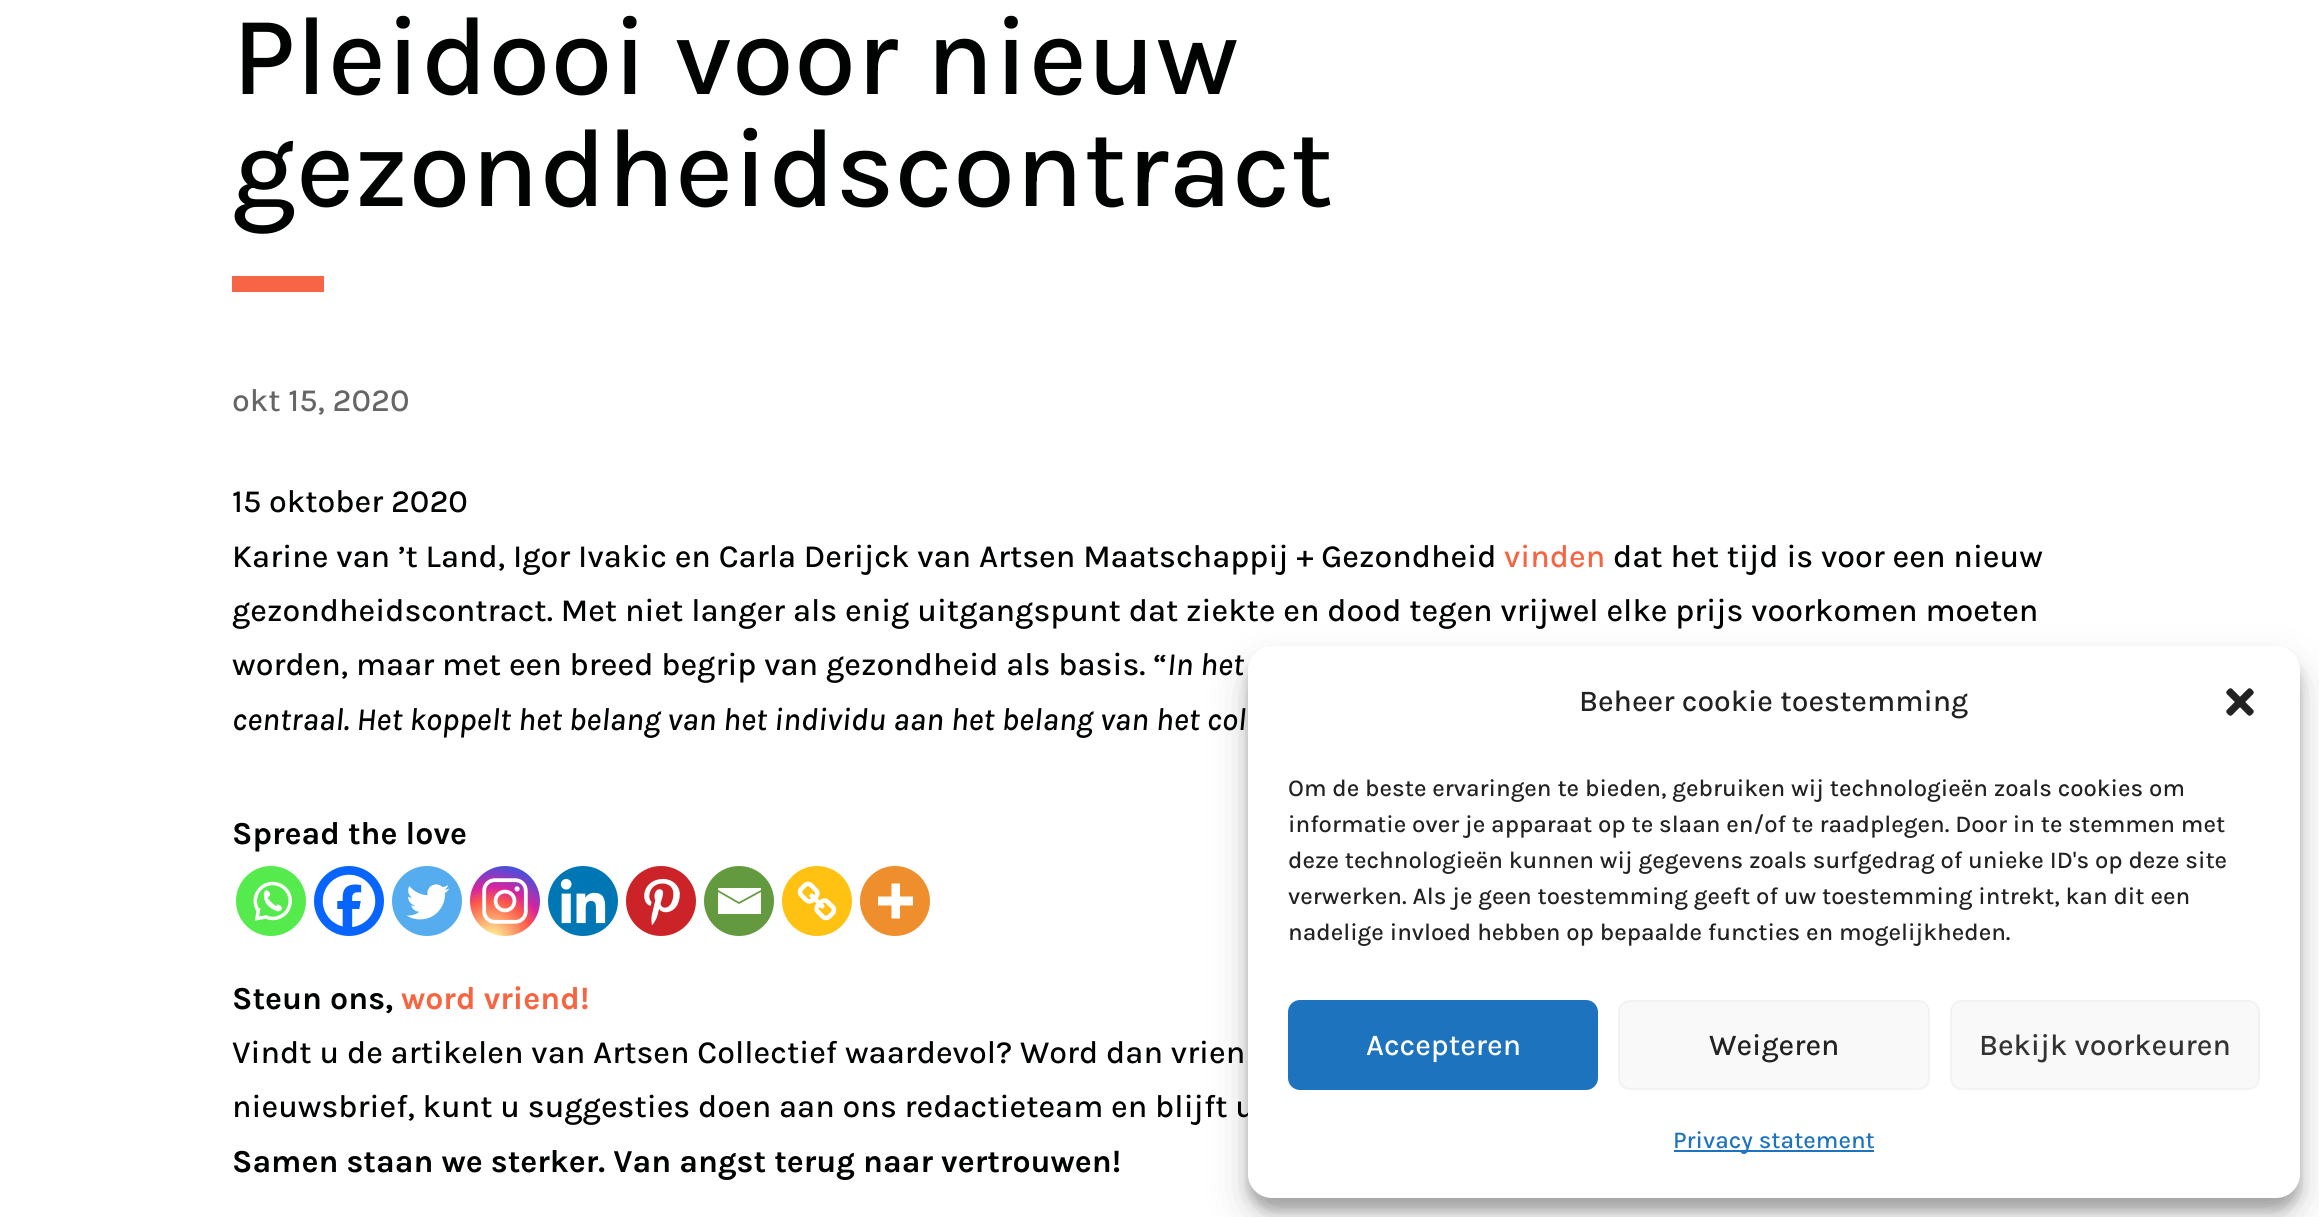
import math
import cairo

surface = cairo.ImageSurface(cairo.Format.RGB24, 2319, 1217)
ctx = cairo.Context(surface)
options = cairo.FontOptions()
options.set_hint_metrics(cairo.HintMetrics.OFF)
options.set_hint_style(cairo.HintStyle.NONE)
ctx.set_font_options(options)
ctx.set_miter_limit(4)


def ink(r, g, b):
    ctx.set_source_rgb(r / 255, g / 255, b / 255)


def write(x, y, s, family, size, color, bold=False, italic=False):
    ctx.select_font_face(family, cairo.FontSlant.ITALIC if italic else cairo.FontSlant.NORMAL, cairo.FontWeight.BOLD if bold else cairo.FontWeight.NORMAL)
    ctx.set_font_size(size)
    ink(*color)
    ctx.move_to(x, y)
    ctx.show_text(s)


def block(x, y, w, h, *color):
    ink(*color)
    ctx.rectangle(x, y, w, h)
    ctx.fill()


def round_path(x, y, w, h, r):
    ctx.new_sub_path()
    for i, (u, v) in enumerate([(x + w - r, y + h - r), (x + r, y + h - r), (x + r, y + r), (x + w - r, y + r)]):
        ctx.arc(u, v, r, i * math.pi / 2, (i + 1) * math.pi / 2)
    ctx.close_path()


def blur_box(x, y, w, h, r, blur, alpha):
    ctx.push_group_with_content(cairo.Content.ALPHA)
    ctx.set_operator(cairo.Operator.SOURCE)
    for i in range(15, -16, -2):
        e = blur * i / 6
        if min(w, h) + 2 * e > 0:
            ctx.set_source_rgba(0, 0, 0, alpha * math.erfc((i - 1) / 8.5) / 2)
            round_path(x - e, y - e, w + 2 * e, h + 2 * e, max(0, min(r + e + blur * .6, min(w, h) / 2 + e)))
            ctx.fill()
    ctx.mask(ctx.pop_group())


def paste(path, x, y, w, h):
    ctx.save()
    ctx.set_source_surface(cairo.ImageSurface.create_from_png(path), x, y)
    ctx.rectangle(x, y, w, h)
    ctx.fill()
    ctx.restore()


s1 = dict(family="Karla Medium", size=112, color=(0, 3, 2))
s2 = dict(family="Karla Medium", size=32, color=(102, 102, 102))
s3 = dict(family="Karla Medium", size=32, color=(0, 3, 2))
s4 = dict(family="Karla Medium", size=32, color=(247, 100, 63))
s5 = dict(family="Karla Medium", size=32, color=(0, 3, 2), italic=True)
s6 = dict(family="Karla", size=32, color=(0, 3, 2), bold=True)
s7 = dict(family="Karla", size=32, color=(247, 100, 63), bold=True)
s8 = dict(family="Karla Medium", size=30, color=(34, 34, 34))
s9 = dict(family="Karla Medium", size=24, color=(34, 34, 34))
s10 = dict(family="Karla Medium", size=30, color=(255, 255, 255))
s11 = dict(family="Karla Medium", size=30, color=(51, 51, 51))
s12 = dict(family="Karla Medium", size=24, color=(30, 115, 190))

ink(255, 255, 255)
ctx.paint()
write(232, 94, "Pleidooi voor nieuw", **s1)
write(232, 206, "gezondheidscontract", **s1)
block(232, 276, 92, 16, 246, 101, 69)
write(232, 411, "okt 15, 2020", **s2)
write(232, 512, "15 oktober 2020", **s3)
write(232, 567, "Karine van ’t Land, Igor Ivakic en Carla Derijck van Artsen Maatschappij + Gezondheid", **s3)
write(1504, 567, "vinden", **s4)
write(1613, 567, "dat het tijd is voor een nieuw", **s3)
write(232, 621, "gezondheidscontract. Met niet langer als enig uitgangspunt dat ziekte en dood tegen vrijwel elke prijs voorkomen moeten", **s3)
write(232, 675, "worden, maar met een breed begrip van gezondheid als basis. “", **s3)
write(1167, 675, "In het", **s5)
write(232, 730, "centraal. Het koppelt het belang van het individu aan het belang van het col", **s5)
write(232, 844, "Spread the love", **s6)
ink(85, 235, 76)
ctx.new_path()
ctx.arc(271, 901, 35, 0, 2 * math.pi)
ctx.fill()
paste("pic1.png", 253, 881, 39, 40)
ink(7, 101, 254)
ctx.arc(349, 901, 35, 0, 2 * math.pi)
ctx.fill()
paste("pic2.png", 322, 874, 54, 53)
ink(85, 172, 238)
ctx.arc(427, 901, 35, 0, 2 * math.pi)
ctx.fill()
paste("pic3.png", 406, 884, 44, 36)
gradient = cairo.RadialGradient(491, 941, 0, 491, 941, 90)
gradient.add_color_stop_rgba(0, 0.992, 0.957, 0.592, 1)
gradient.add_color_stop_rgba(0.05, 0.992, 0.957, 0.592, 1)
gradient.add_color_stop_rgba(0.45, 0.992, 0.349, 0.286, 1)
gradient.add_color_stop_rgba(0.6, 0.839, 0.141, 0.624, 1)
gradient.add_color_stop_rgba(0.9, 0.157, 0.353, 0.922, 1)
ctx.set_source(gradient)
ctx.arc(505, 901, 35, 0, 2 * math.pi)
ctx.fill()
paste("pic4.png", 482, 878, 46, 46)
ink(0, 119, 181)
ctx.arc(583, 901, 35, 0, 2 * math.pi)
ctx.fill()
paste("pic5.png", 560, 878, 46, 46)
ink(204, 35, 41)
ctx.arc(661, 901, 35, 0, 2 * math.pi)
ctx.fill()
paste("pic6.png", 644, 879, 36, 46)
ink(100, 154, 63)
ctx.arc(739, 901, 35, 0, 2 * math.pi)
ctx.fill()
ink(255, 255, 255)
ctx.new_path()
ctx.move_to(716, 888)
ctx.line_to(761, 888)
ctx.line_to(761, 890)
ctx.line_to(739, 902)
ctx.line_to(718, 890)
ctx.line_to(718, 888)
ctx.move_to(718, 892)
ctx.line_to(739, 904)
ctx.line_to(761, 892)
ctx.line_to(761, 914)
ctx.line_to(718, 914)
ctx.line_to(718, 892)
ctx.fill()
ink(255, 193, 18)
ctx.arc(817, 901, 35, 0, 2 * math.pi)
ctx.fill()
paste("pic7.png", 797, 881, 40, 40)
ink(238, 142, 45)
ctx.arc(895, 901, 35, 0, 2 * math.pi)
ctx.fill()
ink(255, 255, 255)
ctx.set_fill_rule(cairo.FillRule.EVEN_ODD)
ctx.new_path()
ctx.move_to(900, 896.5)
ctx.line_to(900, 883.5)
ctx.line_to(891.5, 883.5)
ctx.line_to(891.5, 896.5)
ctx.line_to(878, 896.5)
ctx.line_to(878, 905.5)
ctx.line_to(891.5, 905.5)
ctx.line_to(891.5, 918.5)
ctx.line_to(900, 918.5)
ctx.line_to(900, 905.5)
ctx.line_to(913, 905.5)
ctx.line_to(913, 896.5)
ctx.close_path()
ctx.fill()
write(232, 1009, "Steun ons,", **s6)
write(401, 1009, "word vriend!", **s7)
write(232, 1063, "Vindt u de artikelen van Artsen Collectief waardevol? Word dan vrien", **s3)
write(232, 1117, "nieuwsbrief, kunt u suggesties doen aan ons redactieteam en blijft u", **s3)
write(232, 1172, "Samen staan we sterker. Van angst terug naar vertrouwen!", **s6)
ink(0, 0, 0)
blur_box(1248, 658, 1052, 552, 24, 6, 0.23)
blur_box(1248, 666, 1052, 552, 24, 20, 0.19)
ink(255, 255, 255)
round_path(1248, 646, 1052, 552, 24)
ctx.fill()
write(1579, 711, "Beheer cookie toestemming", **s8)
paste("pic8.png", 2226, 688, 28, 28)
write(1288, 796, "Om de beste ervaringen te bieden, gebruiken wij technologieën zoals cookies om", **s9)
write(1288, 832, "informatie over je apparaat op te slaan en/of te raadplegen. Door in te stemmen met", **s9)
write(1288, 868, "deze technologieën kunnen wij gegevens zoals surfgedrag of unieke ID's op deze site", **s9)
write(1288, 904, "verwerken. Als je geen toestemming geeft of uw toestemming intrekt, kan dit een", **s9)
write(1288, 940, "nadelige invloed hebben op bepaalde functies en mogelijkheden.", **s9)
ink(30, 115, 190)
round_path(1289, 1001, 308, 88, 11)
ctx.fill_preserve()
ctx.stroke()
write(1366, 1055, "Accepteren", **s10)
ink(249, 249, 249)
round_path(1619, 1001, 310, 88, 11)
ctx.fill_preserve()
ink(242, 242, 242)
ctx.stroke()
write(1709, 1055, "Weigeren", **s8)
ink(249, 249, 249)
round_path(1951, 1001, 308, 88, 11)
ctx.fill_preserve()
ink(242, 242, 242)
ctx.stroke()
write(1979, 1055, "Bekijk voorkeuren", **s11)
block(1674, 1150, 200, 2, 30, 115, 190)
write(1673, 1148, "Privacy statement", **s12)
surface.write_to_png("screenshot.png")
